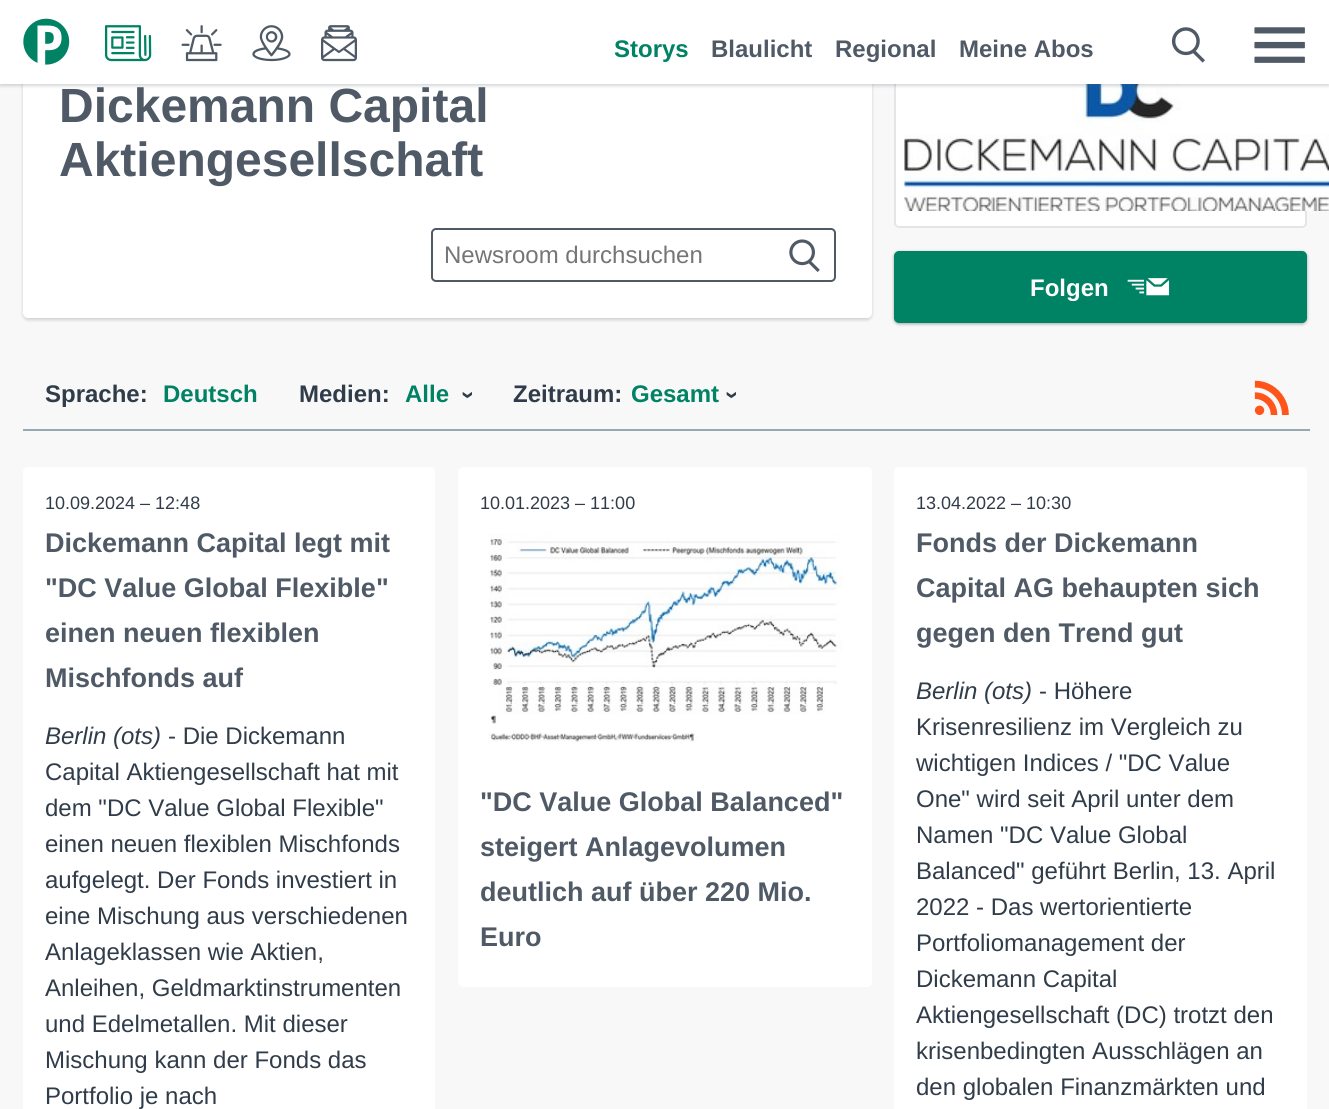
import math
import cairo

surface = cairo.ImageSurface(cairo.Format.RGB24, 1329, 1109)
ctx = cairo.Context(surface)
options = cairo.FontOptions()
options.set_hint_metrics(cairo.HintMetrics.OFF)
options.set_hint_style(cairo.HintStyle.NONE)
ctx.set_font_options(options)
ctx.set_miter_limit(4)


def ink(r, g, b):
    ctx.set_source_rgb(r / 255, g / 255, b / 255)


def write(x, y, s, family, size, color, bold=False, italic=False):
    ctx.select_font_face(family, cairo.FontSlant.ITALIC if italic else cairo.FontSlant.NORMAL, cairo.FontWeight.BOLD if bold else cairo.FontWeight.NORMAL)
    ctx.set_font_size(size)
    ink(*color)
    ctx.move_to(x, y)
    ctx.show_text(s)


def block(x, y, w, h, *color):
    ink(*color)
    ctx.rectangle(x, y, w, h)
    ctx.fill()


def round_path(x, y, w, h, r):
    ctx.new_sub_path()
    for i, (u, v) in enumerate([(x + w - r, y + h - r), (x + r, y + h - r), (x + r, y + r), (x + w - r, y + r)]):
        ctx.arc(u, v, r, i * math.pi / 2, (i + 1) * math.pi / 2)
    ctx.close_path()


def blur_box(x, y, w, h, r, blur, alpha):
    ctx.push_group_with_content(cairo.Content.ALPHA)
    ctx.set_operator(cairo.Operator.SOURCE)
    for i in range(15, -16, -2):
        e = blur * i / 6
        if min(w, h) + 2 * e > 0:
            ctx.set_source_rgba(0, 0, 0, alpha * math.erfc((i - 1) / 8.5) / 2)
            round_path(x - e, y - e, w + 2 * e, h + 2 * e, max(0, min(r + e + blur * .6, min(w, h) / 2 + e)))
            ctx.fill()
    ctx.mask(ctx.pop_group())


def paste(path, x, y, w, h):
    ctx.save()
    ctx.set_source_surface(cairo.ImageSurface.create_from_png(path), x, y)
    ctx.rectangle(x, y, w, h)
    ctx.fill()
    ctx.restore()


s1 = dict(family="Liberation Sans", size=24, color=(0, 130, 100), bold=True)
s2 = dict(family="Liberation Sans", size=24, color=(79, 90, 102), bold=True)
s3 = dict(family="Liberation Sans", size=48, color=(79, 90, 102), bold=True)
s4 = dict(family="Liberation Sans", size=24, color=(117, 117, 117))
s5 = dict(family="Liberation Sans", size=24, color=(255, 255, 255), bold=True)
s6 = dict(family="Liberation Sans", size=24, color=(48, 60, 73), bold=True)
s7 = dict(family="Liberation Sans", size=18, color=(48, 60, 73))
s8 = dict(family="Liberation Sans", size=27, color=(79, 90, 102), bold=True)
s9 = dict(family="Liberation Sans", size=24, color=(48, 60, 73), italic=True)
s10 = dict(family="Liberation Sans", size=24, color=(48, 60, 73))

ink(248, 248, 248)
ctx.paint()
ink(79, 90, 102)
blur_box(23, 44, 849, 276, 5, 1.5, 0.16)
blur_box(23, 44, 849, 276, 5, 1.5, 0.1)
ink(255, 255, 255)
round_path(23, 42, 849, 276, 5)
ctx.fill()
round_path(895, 43, 411, 184, 4)
ctx.fill_preserve()
ink(226, 230, 233)
ctx.stroke()
paste("pic9.png", 904, 84, 425, 127)
ink(79, 90, 102)
blur_box(0, 2, 1329, 84, 0, 1.5, 0.16)
blur_box(0, 2, 1329, 84, 0, 1.5, 0.1)
block(0, 0, 1329, 84, 255, 255, 255)
paste("pic1.png", 23, 18, 47, 47)
paste("pic2.png", 105, 25, 47, 37)
paste("pic3.png", 181, 25, 41, 37)
paste("pic4.png", 252, 25, 39, 37)
paste("pic5.png", 321, 25, 36, 37)
write(614, 57, "Storys", **s1)
write(711, 57, "Blaulicht", **s2)
write(835, 57, "Regional", **s2)
write(959, 57, "Meine Abos", **s2)
paste("pic6.png", 1171, 27, 34, 36)
paste("pic7.png", 1254, 27, 51, 36)
write(59, 122, "Dickemann Capital", **s3)
write(59, 176, "Aktiengesellschaft", **s3)
round_path(432, 229, 403, 52, 4)
ctx.stroke()
write(444, 263, "Newsroom durchsuchen", **s4)
paste("pic8.png", 789, 239, 31, 33)
ink(0, 0, 0)
blur_box(894, 252, 413, 72, 5, 1.5, 0.24)
blur_box(894, 252, 413, 72, 5, 2, 0.12)
ink(0, 130, 100)
round_path(895, 252, 411, 70, 4)
ctx.fill_preserve()
ctx.stroke()
write(1030, 296, "Folgen", **s5)
paste("pic10.png", 1127, 278, 43, 18)
block(23, 429, 1287, 2, 153, 169, 178)
write(45, 402, "Sprache:", **s6)
write(163, 402, "Deutsch", **s1)
write(299, 402, "Medien:", **s6)
write(405, 402, "Alle", **s1)
ctx.save()
ctx.translate(461, 391)
ctx.rotate(90 * math.pi / 180)
write(0, 0, "›", **s6)
ctx.restore()
write(513, 402, "Zeitraum:", **s6)
write(631, 402, "Gesamt", **s1)
ctx.save()
ctx.translate(725, 391)
ctx.rotate(90 * math.pi / 180)
write(0, 0, "›", **s6)
ctx.restore()
paste("pic11.png", 1254, 380, 35, 35)
ink(255, 255, 255)
round_path(23, 467, 412, 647, 5)
ctx.fill()
write(45, 509, "10.09.2024 – 12:48", **s7)
write(45, 552, "Dickemann Capital legt mit", **s8)
write(45, 597, "\"DC Value Global Flexible\"", **s8)
write(45, 642, "einen neuen flexiblen", **s8)
write(45, 687, "Mischfonds auf", **s8)
write(45, 744, "Berlin (ots)", **s9)
write(168, 744, "- Die Dickemann", **s10)
write(45, 780, "Capital Aktiengesellschaft hat mit", **s10)
write(45, 816, "dem \"DC Value Global Flexible\"", **s10)
write(45, 852, "einen neuen flexiblen Mischfonds", **s10)
write(45, 888, "aufgelegt. Der Fonds investiert in", **s10)
write(45, 924, "eine Mischung aus verschiedenen", **s10)
write(45, 960, "Anlageklassen wie Aktien,", **s10)
write(45, 996, "Anleihen, Geldmarktinstrumenten", **s10)
write(45, 1032, "und Edelmetallen. Mit dieser", **s10)
write(45, 1068, "Mischung kann der Fonds das", **s10)
write(45, 1104, "Portfolio je nach", **s10)
ink(255, 255, 255)
round_path(458, 467, 414, 520, 5)
ctx.fill()
write(480, 509, "10.01.2023 – 11:00", **s7)
paste("pic12.png", 489, 533, 354, 209)
write(480, 811, "\"DC Value Global Balanced\"", **s8)
write(480, 856, "steigert Anlagevolumen", **s8)
write(480, 901, "deutlich auf über 220 Mio.", **s8)
write(480, 946, "Euro", **s8)
ink(255, 255, 255)
round_path(894, 467, 413, 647, 5)
ctx.fill()
write(916, 509, "13.04.2022 – 10:30", **s7)
write(916, 552, "Fonds der Dickemann", **s8)
write(916, 597, "Capital AG behaupten sich", **s8)
write(916, 642, "gegen den Trend gut", **s8)
write(916, 699, "Berlin (ots)", **s9)
write(1039, 699, "- Höhere", **s10)
write(916, 735, "Krisenresilienz im Vergleich zu", **s10)
write(916, 771, "wichtigen Indices / \"DC Value", **s10)
write(916, 807, "One\" wird seit April unter dem", **s10)
write(916, 843, "Namen \"DC Value Global", **s10)
write(916, 879, "Balanced\" geführt Berlin, 13. April", **s10)
write(916, 915, "2022 - Das wertorientierte", **s10)
write(916, 951, "Portfoliomanagement der", **s10)
write(916, 987, "Dickemann Capital", **s10)
write(916, 1023, "Aktiengesellschaft (DC) trotzt den", **s10)
write(916, 1059, "krisenbedingten Ausschlägen an", **s10)
write(916, 1095, "den globalen Finanzmärkten und", **s10)
surface.write_to_png("screenshot.png")
